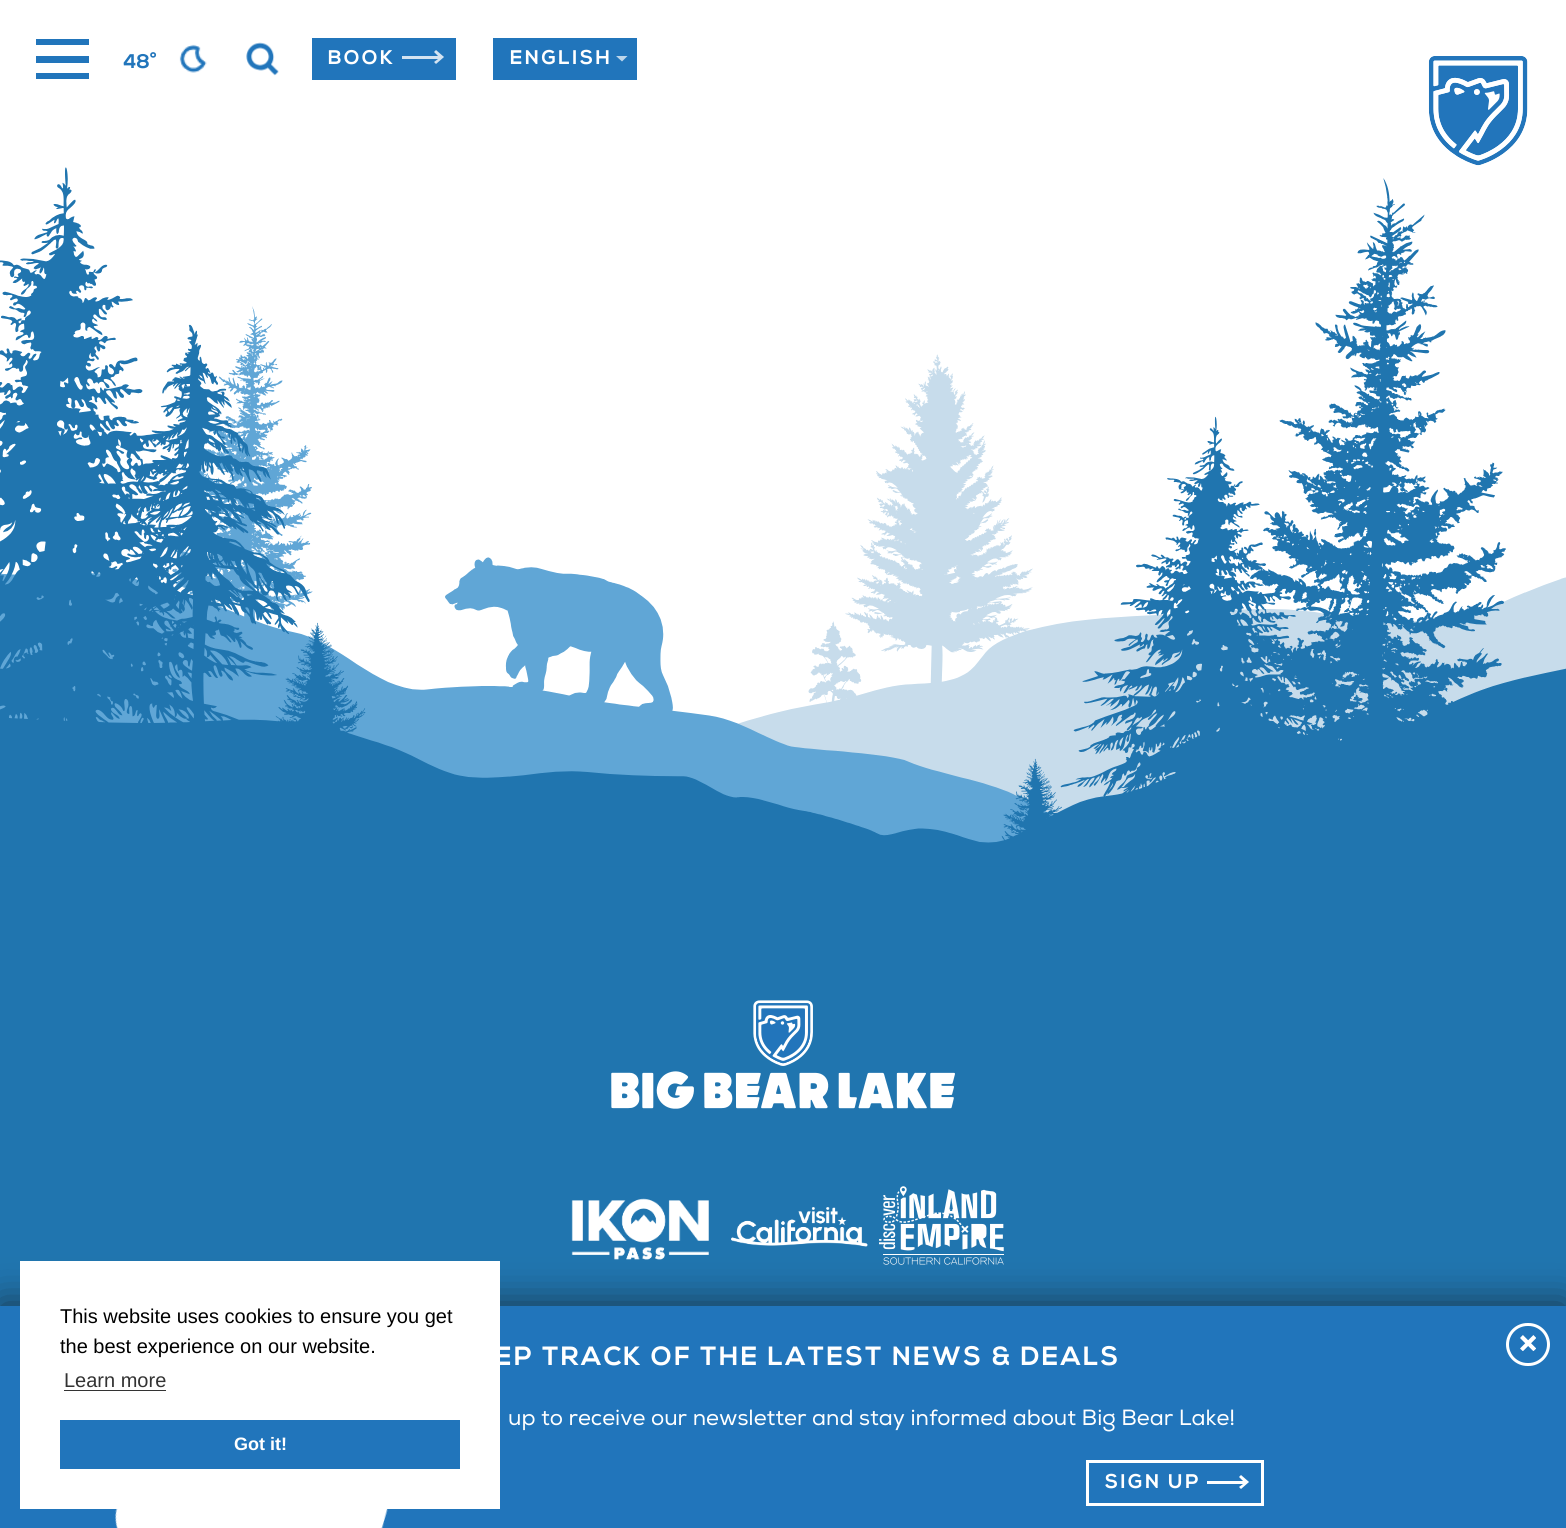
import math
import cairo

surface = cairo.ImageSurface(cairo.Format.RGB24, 1566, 1528)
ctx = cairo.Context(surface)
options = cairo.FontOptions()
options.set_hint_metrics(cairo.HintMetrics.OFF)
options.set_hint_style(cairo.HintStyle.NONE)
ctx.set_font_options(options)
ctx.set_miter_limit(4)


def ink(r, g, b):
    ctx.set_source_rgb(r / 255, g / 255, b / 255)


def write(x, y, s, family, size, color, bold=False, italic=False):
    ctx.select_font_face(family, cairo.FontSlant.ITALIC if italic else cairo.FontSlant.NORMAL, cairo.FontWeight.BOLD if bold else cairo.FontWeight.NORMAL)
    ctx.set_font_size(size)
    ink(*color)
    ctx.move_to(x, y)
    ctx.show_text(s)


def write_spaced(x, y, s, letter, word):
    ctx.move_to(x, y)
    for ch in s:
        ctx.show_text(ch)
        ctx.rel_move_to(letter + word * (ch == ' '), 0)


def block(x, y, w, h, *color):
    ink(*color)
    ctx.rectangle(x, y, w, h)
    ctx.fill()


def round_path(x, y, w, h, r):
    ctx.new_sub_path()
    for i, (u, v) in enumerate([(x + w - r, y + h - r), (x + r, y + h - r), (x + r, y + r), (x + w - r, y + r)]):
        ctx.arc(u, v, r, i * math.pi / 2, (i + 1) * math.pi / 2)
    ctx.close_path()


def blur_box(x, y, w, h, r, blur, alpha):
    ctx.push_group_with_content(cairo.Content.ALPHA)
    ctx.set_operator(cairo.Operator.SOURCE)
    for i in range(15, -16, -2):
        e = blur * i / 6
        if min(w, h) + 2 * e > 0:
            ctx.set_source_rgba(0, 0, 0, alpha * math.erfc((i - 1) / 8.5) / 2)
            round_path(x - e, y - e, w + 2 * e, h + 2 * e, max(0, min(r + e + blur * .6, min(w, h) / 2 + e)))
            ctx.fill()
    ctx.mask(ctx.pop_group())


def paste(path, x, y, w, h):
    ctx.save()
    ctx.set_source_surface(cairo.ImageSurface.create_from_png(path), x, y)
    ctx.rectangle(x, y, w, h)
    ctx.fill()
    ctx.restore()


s1 = dict(family="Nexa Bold", size=19.75, color=(33, 117, 187), bold=True)
s2 = dict(family="Nexa Bold", size=22, color=(33, 117, 187), bold=True)
s3 = dict(family="Liberation Sans", size=20, color=(0, 0, 0))
s4 = dict(family="Liberation Sans", size=20, color=(51, 51, 51))
s5 = dict(family="Liberation Sans", size=18, color=(255, 255, 255), bold=True)
s6 = dict(family="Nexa", size=22, color=(255, 255, 255))

ink(255, 255, 255)
ctx.paint()
block(36, 39, 53, 6, 33, 117, 187)
block(36, 56, 53, 7, 33, 117, 187)
block(36, 73, 53, 6, 33, 117, 187)
write(123, 68, "48", **s1)
write(150, 68, "°", **s2)
paste("pic1.png", 179, 44, 28, 29)
paste("pic2.png", 246, 42, 33, 34)
block(312, 38, 144, 42, 33, 117, 187)
ctx.set_font_size(19.75)
ink(255, 255, 255)
write_spaced(328, 64, "BOOK", 2.5, 0)
ink(211, 227, 241)
ctx.set_fill_rule(cairo.FillRule.EVEN_ODD)
ctx.new_path()
ctx.move_to(402, 59)
ctx.line_to(402, 56)
ctx.line_to(438, 56)
ctx.line_to(434, 52)
ctx.line_to(436, 50)
ctx.line_to(444, 57)
ctx.line_to(436, 64)
ctx.line_to(434, 62)
ctx.line_to(438, 59)
ctx.close_path()
ctx.fill()
block(493, 38, 144, 42, 33, 117, 187)
ink(188, 214, 235)
ctx.new_path()
ctx.move_to(616, 56)
ctx.line_to(627.5, 56)
ctx.line_to(622, 61.5)
ctx.close_path()
ctx.fill()
ink(255, 255, 255)
write_spaced(510, 64, "ENGLISH", 2.5, 0)
paste("pic3.png", 1428, 56, 100, 110)
block(0, 940, 1566, 366, 32, 117, 175)
paste("pic6.png", 571, 1198, 138, 62)
paste("pic7.png", 731, 1207, 137, 40)
paste("pic8.png", 879, 1186, 125, 79)
ink(19, 19, 19)
blur_box(0, 1304, 1566, 222, 0, 19, 0.65)
block(0, 1306, 1566, 222, 33, 117, 187)
block(20, 1261, 480, 248, 255, 255, 255)
write(60, 1323, "This website uses cookies to ensure you get", **s3)
write(60, 1353, "the best experience on our website.", **s3)
write(64, 1387, "Learn more", **s4)
block(64, 1390, 102, 1, 51, 51, 51)
block(60, 1420, 400, 49, 33, 117, 187)
write(234, 1450, "Got it!", **s5)
paste("pic4.png", 0, 167, 1566, 773)
paste("pic5.png", 611, 1000, 344, 109)
ctx.select_font_face("Nexa Bold", cairo.FontSlant.NORMAL, cairo.FontWeight.BOLD)
ctx.set_font_size(26.4)
write_spaced(495, 1365, "EP TRACK OF THE LATEST NEWS & DEALS", 2.5, 0)
write(508, 1425, "up to receive our newsletter and stay informed about Big Bear Lake!", **s6)
ctx.rectangle(1087.5, 1461.5, 175, 43)
ctx.set_line_width(3)
ctx.stroke()
ctx.select_font_face("Nexa Bold", cairo.FontSlant.NORMAL, cairo.FontWeight.BOLD)
ctx.set_font_size(19.75)
write_spaced(1105, 1488, "SIGN UP", 2.5, 0)
ctx.new_path()
ctx.move_to(1207, 1484)
ctx.line_to(1207, 1481)
ctx.line_to(1243, 1481)
ctx.line_to(1239, 1477)
ctx.line_to(1241, 1475)
ctx.line_to(1249, 1482)
ctx.line_to(1241, 1489)
ctx.line_to(1239, 1487)
ctx.line_to(1243, 1484)
ctx.close_path()
ctx.fill()
paste("pic9.png", 115, 1509, 273, 19)
round_path(1507.5, 1324.5, 41, 40, 20)
ctx.stroke()
paste("pic10.png", 1520, 1335, 16, 16)
surface.write_to_png("screenshot.png")
